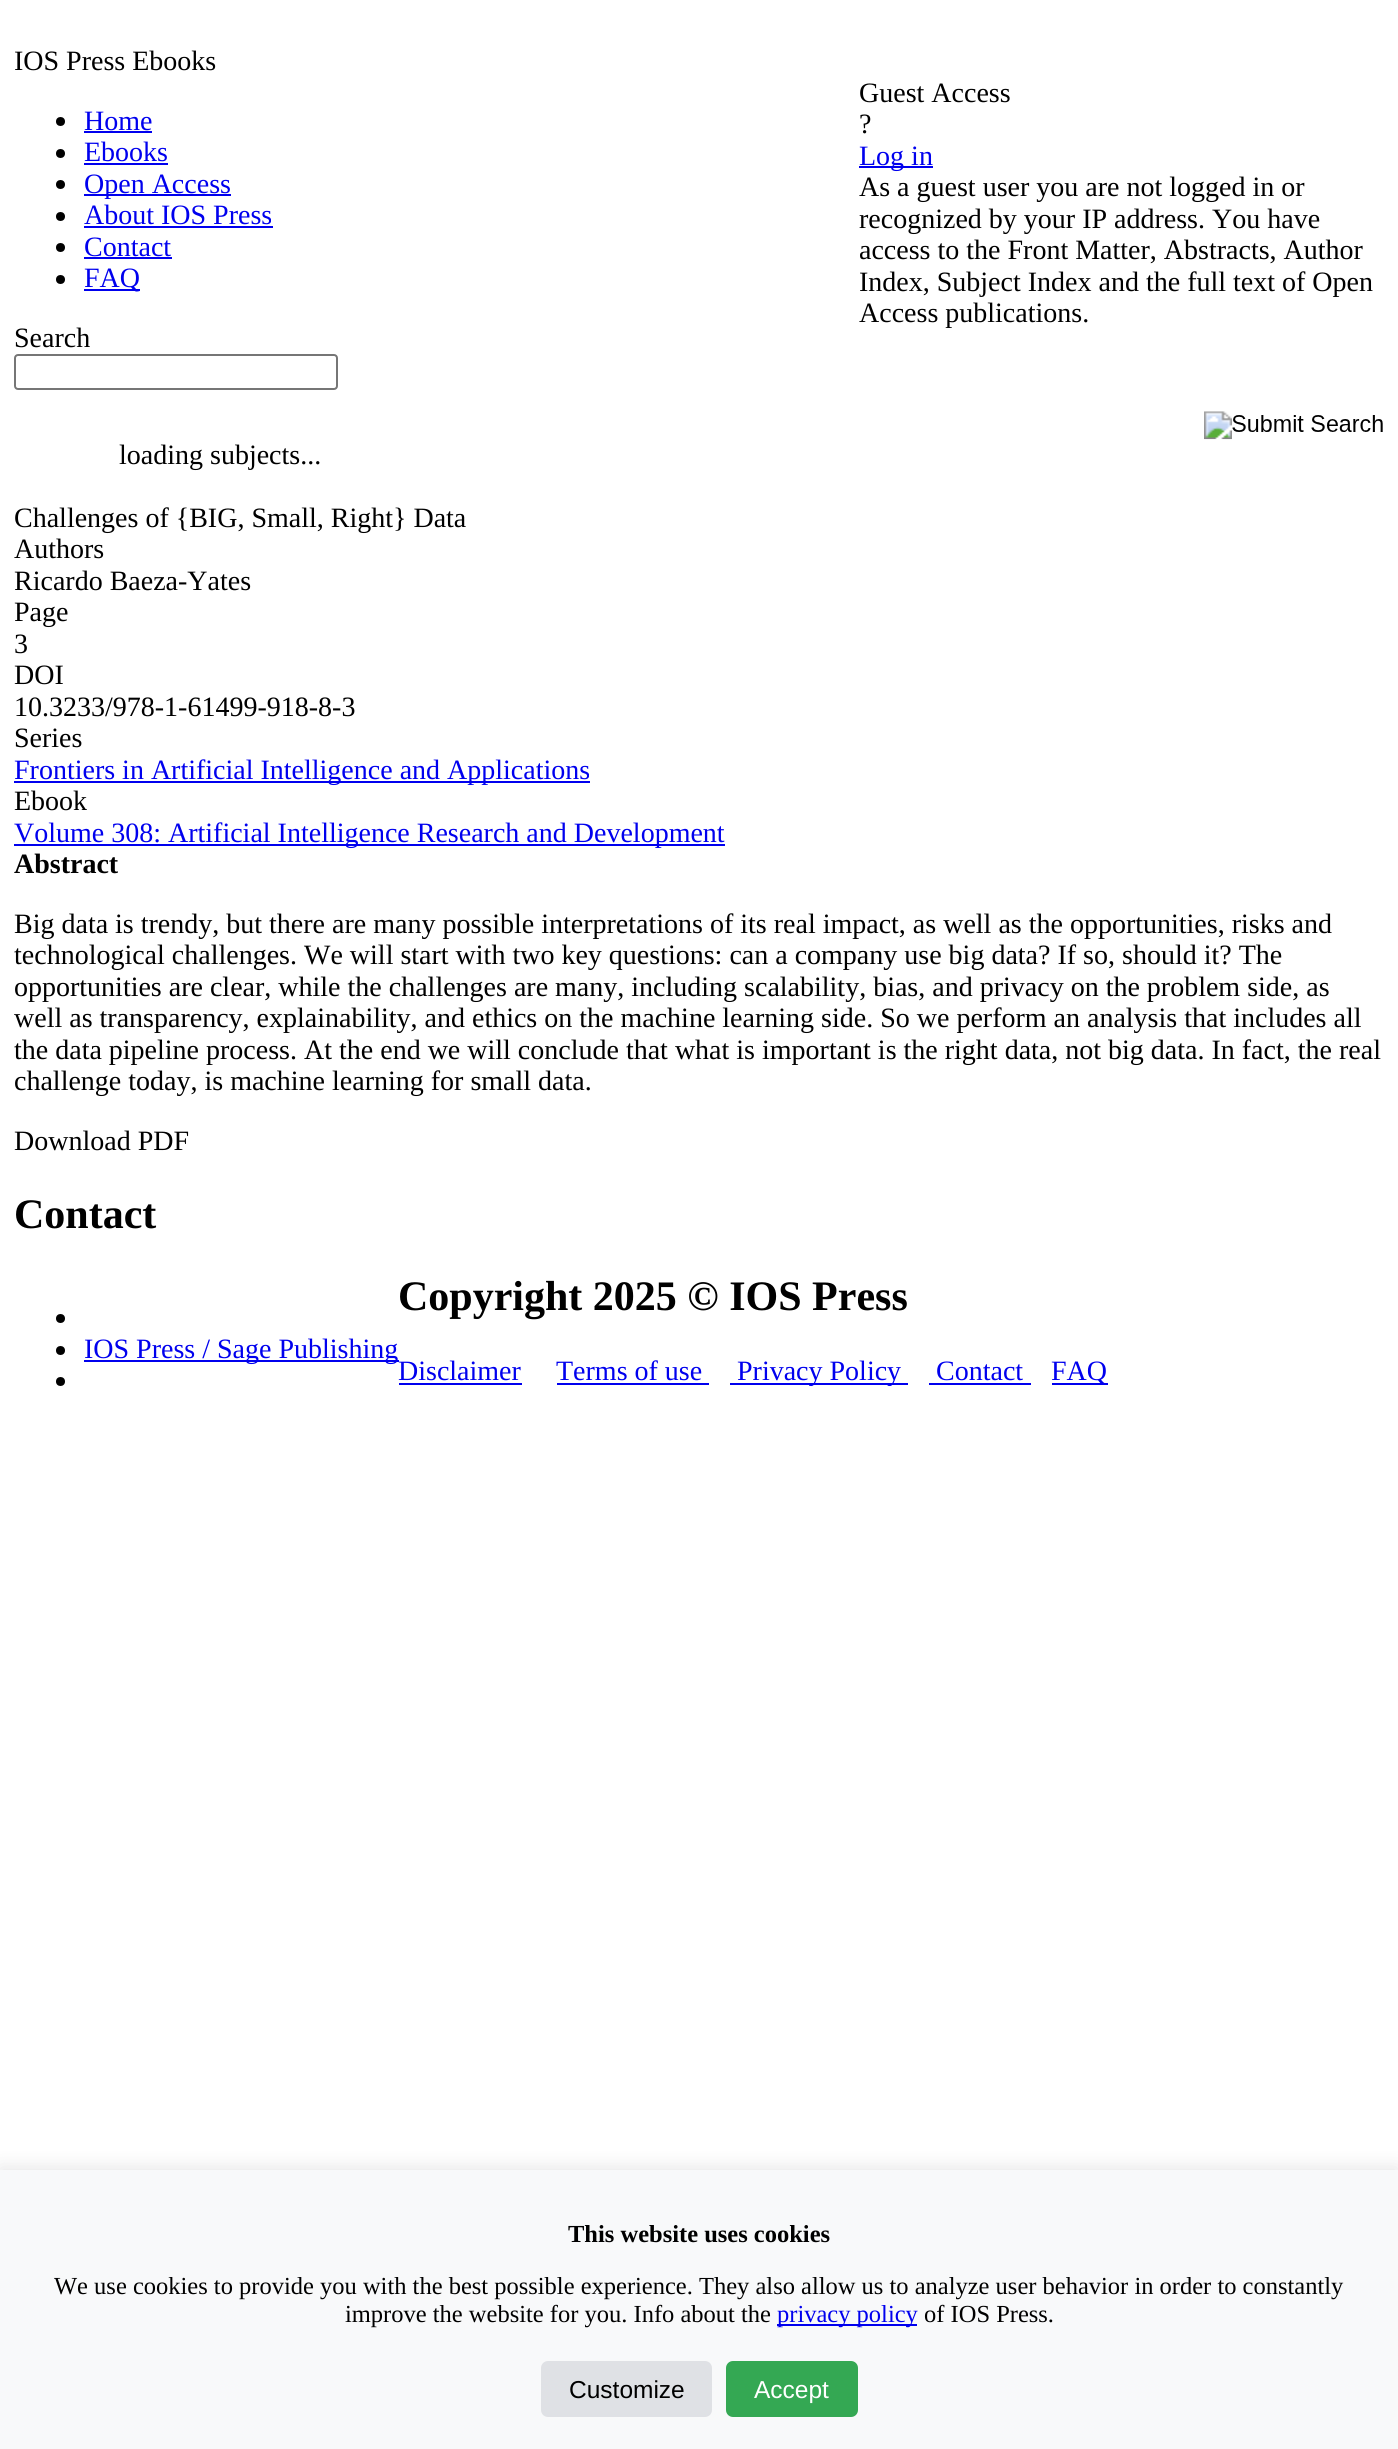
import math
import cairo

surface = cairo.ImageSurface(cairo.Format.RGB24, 1398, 2449)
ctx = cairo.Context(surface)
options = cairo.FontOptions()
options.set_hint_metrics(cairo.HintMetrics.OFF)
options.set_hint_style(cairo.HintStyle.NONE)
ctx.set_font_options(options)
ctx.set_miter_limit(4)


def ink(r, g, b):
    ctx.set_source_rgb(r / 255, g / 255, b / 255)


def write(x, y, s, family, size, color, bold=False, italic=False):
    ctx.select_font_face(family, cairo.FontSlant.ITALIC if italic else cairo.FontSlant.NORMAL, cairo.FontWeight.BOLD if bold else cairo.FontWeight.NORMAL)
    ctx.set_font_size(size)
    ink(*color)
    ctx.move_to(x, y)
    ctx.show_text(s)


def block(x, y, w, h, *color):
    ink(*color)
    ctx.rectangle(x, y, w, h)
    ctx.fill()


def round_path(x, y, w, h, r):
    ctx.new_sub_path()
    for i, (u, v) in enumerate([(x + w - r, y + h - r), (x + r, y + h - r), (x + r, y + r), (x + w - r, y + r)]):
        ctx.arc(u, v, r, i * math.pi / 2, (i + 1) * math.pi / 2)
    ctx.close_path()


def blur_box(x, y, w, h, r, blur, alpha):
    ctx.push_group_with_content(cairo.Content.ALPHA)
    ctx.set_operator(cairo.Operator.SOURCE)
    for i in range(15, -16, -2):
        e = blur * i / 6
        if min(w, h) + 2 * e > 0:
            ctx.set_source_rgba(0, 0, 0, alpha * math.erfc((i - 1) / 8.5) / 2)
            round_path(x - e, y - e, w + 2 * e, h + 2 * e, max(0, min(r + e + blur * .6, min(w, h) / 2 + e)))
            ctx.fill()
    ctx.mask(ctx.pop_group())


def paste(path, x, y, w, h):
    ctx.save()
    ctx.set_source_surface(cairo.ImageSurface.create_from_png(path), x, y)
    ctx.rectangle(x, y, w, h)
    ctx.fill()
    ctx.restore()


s1 = dict(family="Liberation Serif", size=28, color=(0, 0, 0))
s2 = dict(family="Liberation Serif", size=28, color=(0, 0, 238))
s3 = dict(family="Liberation Serif", size=28, color=(0, 0, 0), bold=True)
s4 = dict(family="Liberation Serif", size=42, color=(0, 0, 0), bold=True)
s5 = dict(family="Liberation Serif", size=24.5, color=(0, 0, 0), bold=True)
s6 = dict(family="Liberation Serif", size=24.5, color=(0, 0, 0))
s7 = dict(family="Liberation Serif", size=24.5, color=(0, 0, 238))
s8 = dict(family="Liberation Sans", size=24.5, color=(0, 0, 0))
s9 = dict(family="Liberation Sans", size=24.5, color=(255, 255, 255))

ink(255, 255, 255)
ctx.paint()
write(14, 70, "IOS Press Ebooks", **s1)
ctx.new_path()
ctx.arc(60.5, 121.5, 4.5, 0, 2 * math.pi)
ctx.fill()
write(84, 130, "Home", **s2)
block(84, 131, 68, 2, 0, 0, 238)
ink(0, 0, 0)
ctx.new_path()
ctx.arc(60.5, 153.5, 4.5, 0, 2 * math.pi)
ctx.fill()
write(84, 161, "Ebooks", **s2)
block(84, 163, 84, 2, 0, 0, 238)
ink(0, 0, 0)
ctx.new_path()
ctx.arc(60.5, 184.5, 4.5, 0, 2 * math.pi)
ctx.fill()
block(84, 194, 147, 2, 0, 0, 238)
write(84, 193, "Open Access", **s2)
ink(0, 0, 0)
ctx.new_path()
ctx.arc(60.5, 216.5, 4.5, 0, 2 * math.pi)
ctx.fill()
write(84, 224, "About IOS Press", **s2)
block(84, 226, 189, 2, 0, 0, 238)
ink(0, 0, 0)
ctx.new_path()
ctx.arc(60.5, 247.5, 4.5, 0, 2 * math.pi)
ctx.fill()
write(84, 256, "Contact", **s2)
block(84, 257, 88, 2, 0, 0, 238)
ink(0, 0, 0)
ctx.new_path()
ctx.arc(60.5, 279.5, 4.5, 0, 2 * math.pi)
ctx.fill()
block(84, 289, 56, 2, 0, 0, 238)
write(84, 287, "FAQ", **s2)
write(859, 102, "Guest Access", **s1)
write(859, 133, "?", **s1)
block(859, 166, 74, 2, 0, 0, 238)
write(859, 165, "Log in", **s2)
write(859, 196, "As a guest user you are not logged in or", **s1)
write(859, 228, "recognized by your IP address. You have", **s1)
write(859, 259, "access to the Front Matter, Abstracts, Author", **s1)
write(859, 291, "Index, Subject Index and the full text of Open", **s1)
write(859, 322, "Access publications.", **s1)
write(14, 347, "Search", **s1)
round_path(15, 355, 322, 34, 3)
ink(118, 118, 118)
ctx.stroke()
paste("pic1.png", 1204, 411, 179, 29)
write(119, 464, "loading subjects...", **s1)
write(14, 527, "Challenges of {BIG, Small, Right} Data", **s1)
write(14, 558, "Authors", **s1)
write(14, 590, "Ricardo Baeza-Yates", **s1)
write(14, 621, "Page", **s1)
write(14, 653, "3", **s1)
write(14, 684, "DOI", **s1)
write(14, 716, "10.3233/978-1-61499-918-8-3", **s1)
write(14, 747, "Series", **s1)
block(14, 781, 576, 2, 0, 0, 238)
write(14, 779, "Frontiers in Artificial Intelligence and Applications", **s2)
write(14, 810, "Ebook", **s1)
block(14, 844, 711, 2, 0, 0, 238)
write(14, 842, "Volume 308: Artificial Intelligence Research and Development", **s2)
write(14, 873, "Abstract", **s3)
write(14, 933, "Big data is trendy, but there are many possible interpretations of its real impact, as well as the opportunities, risks and", **s1)
write(14, 964, "technological challenges. We will start with two key questions: can a company use big data? If so, should it? The", **s1)
write(14, 996, "opportunities are clear, while the challenges are many, including scalability, bias, and privacy on the problem side, as", **s1)
write(14, 1027, "well as transparency, explainability, and ethics on the machine learning side. So we perform an analysis that includes all", **s1)
write(14, 1059, "the data pipeline process. At the end we will conclude that what is important is the right data, not big data. In fact, the real", **s1)
write(14, 1090, "challenge today, is machine learning for small data.", **s1)
write(14, 1150, "Download PDF", **s1)
write(14, 1228, "Contact", **s4)
ctx.new_path()
ctx.arc(60.5, 1318.5, 4.5, 0, 2 * math.pi)
ctx.fill()
ctx.arc(60.5, 1350.5, 4.5, 0, 2 * math.pi)
ctx.fill()
block(84, 1360, 315, 2, 0, 0, 238)
write(84, 1358, "IOS Press / Sage Publishing", **s2)
ink(0, 0, 0)
ctx.new_path()
ctx.arc(60.5, 1381.5, 4.5, 0, 2 * math.pi)
ctx.fill()
write(398, 1310, "Copyright 2025 © IOS Press", **s4)
write(398, 1380, "Disclaimer", **s2)
block(399, 1383, 123, 2, 0, 0, 238)
write(556, 1380, "Terms of use", **s2)
block(557, 1383, 152, 2, 0, 0, 238)
block(730, 1383, 178, 2, 0, 0, 238)
write(737, 1380, "Privacy Policy", **s2)
write(936, 1380, "Contact", **s2)
block(929, 1383, 102, 2, 0, 0, 238)
block(1052, 1383, 56, 2, 0, 0, 238)
write(1051, 1380, "FAQ", **s2)
ink(0, 0, 0)
blur_box(0, 2167, 1398, 280, 0, 9, 0.1)
block(0, 2170, 1398, 279, 248, 249, 250)
write(568, 2242, "This website uses cookies", **s5)
write(54, 2294, "We use cookies to provide you with the best possible experience. They also allow us to analyze user behavior in order to constantly", **s6)
write(345, 2322, "improve the website for you. Info about the", **s6)
block(777, 2324, 140, 2, 0, 0, 238)
write(777, 2322, "privacy policy", **s7)
write(924, 2322, "of IOS Press.", **s6)
ink(223, 225, 229)
round_path(541, 2361, 171, 56, 7)
ctx.fill()
write(569, 2398, "Customize", **s8)
ink(52, 168, 83)
round_path(726, 2361, 132, 56, 7)
ctx.fill()
write(754, 2398, "Accept", **s9)
surface.write_to_png("screenshot.png")
